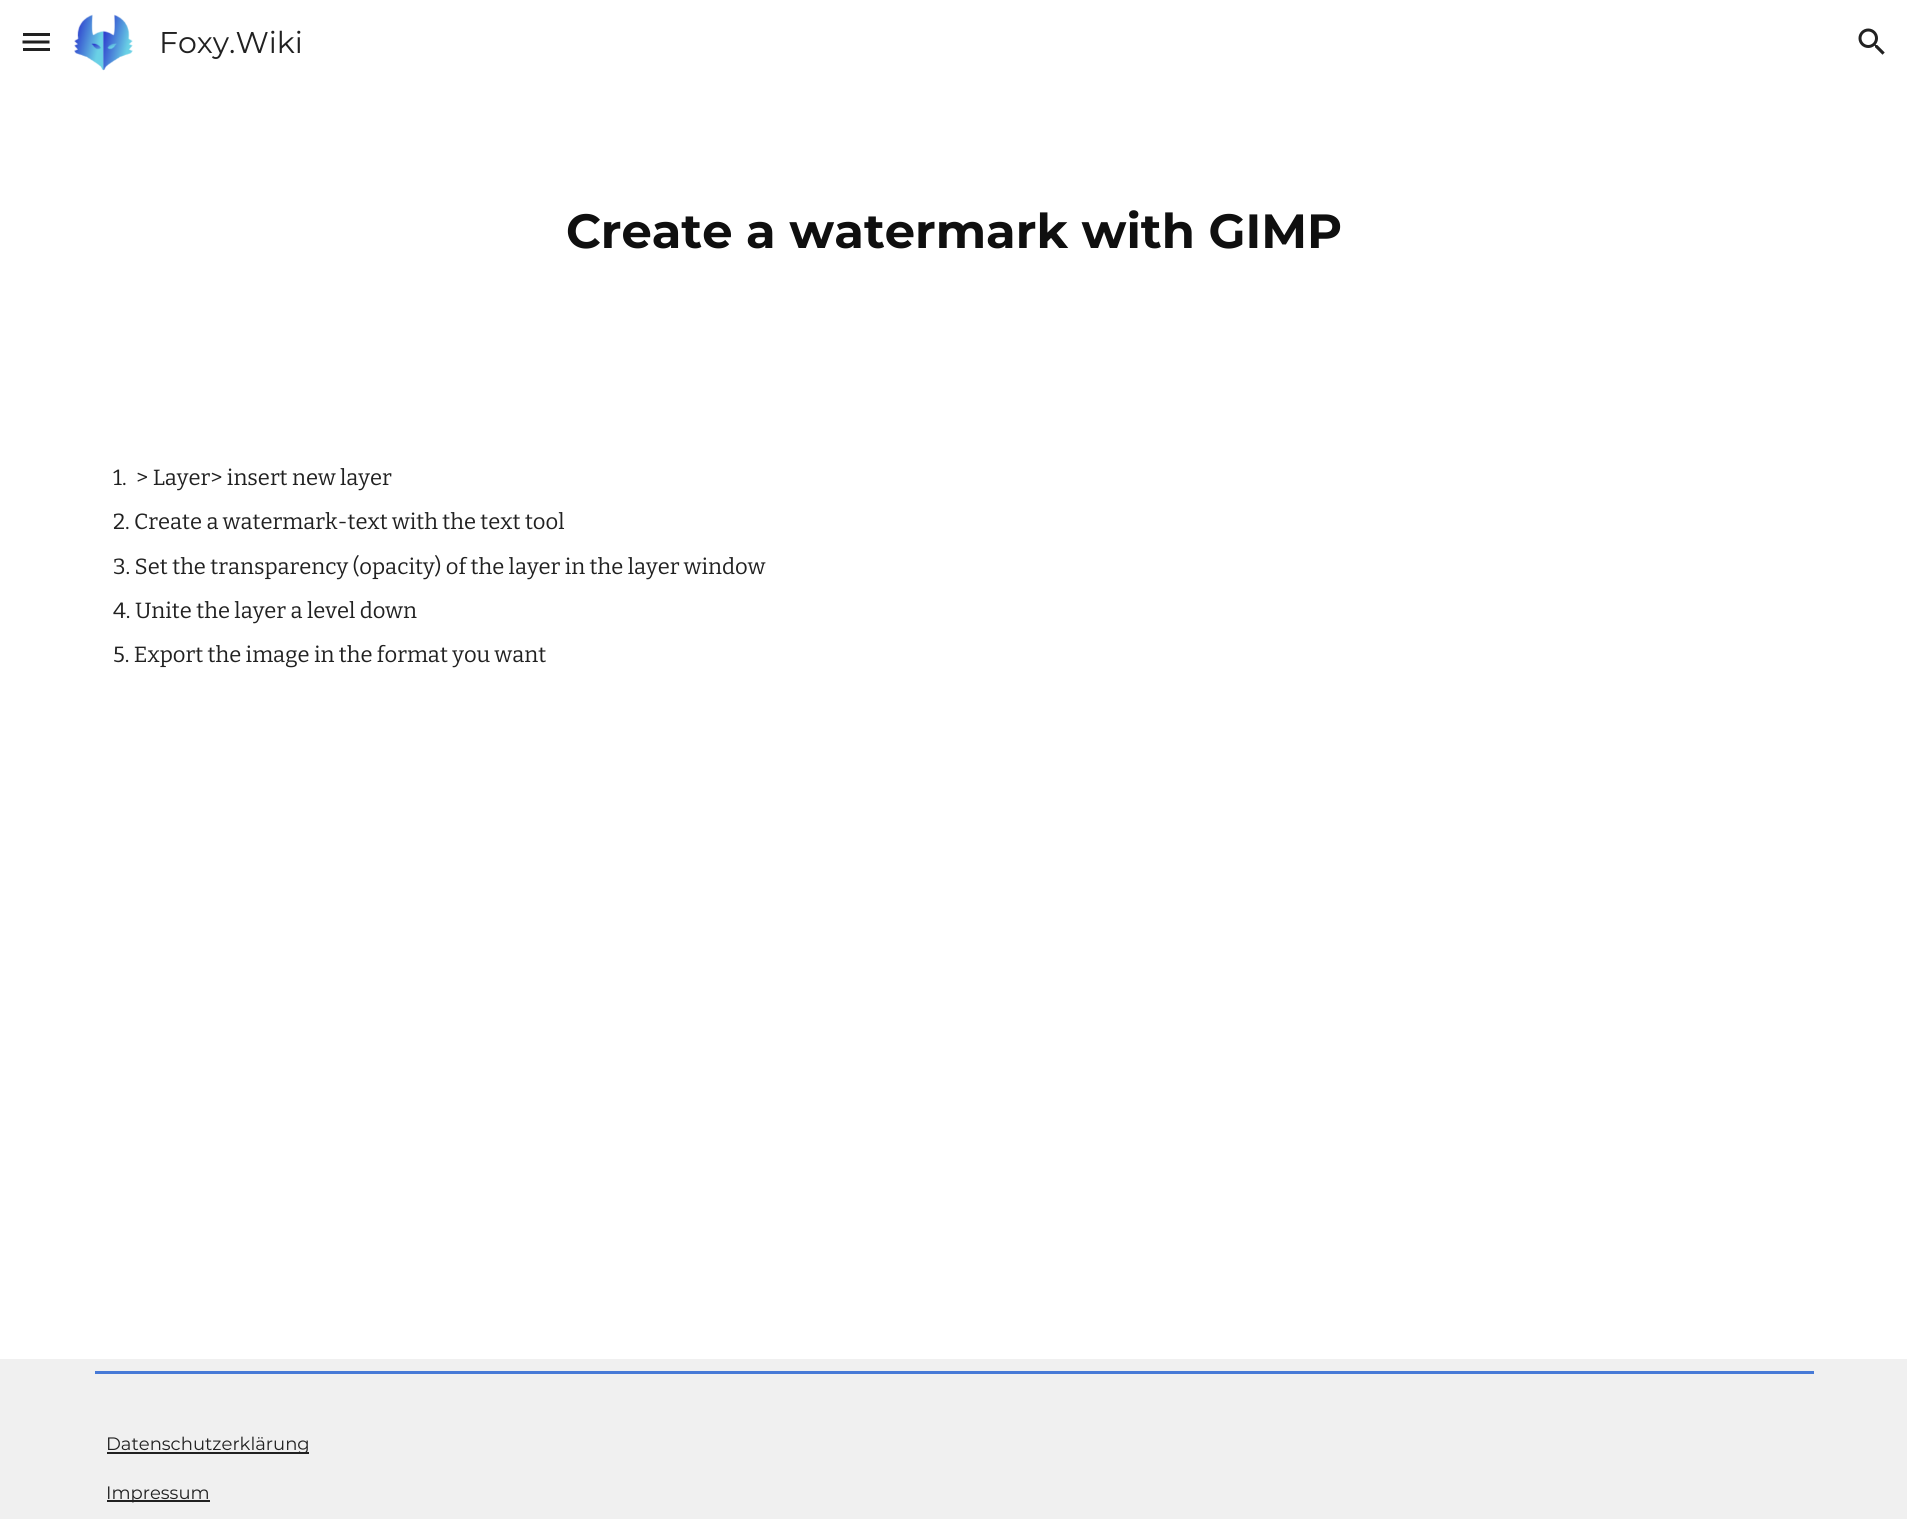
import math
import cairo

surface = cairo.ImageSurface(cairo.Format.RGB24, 1907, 1519)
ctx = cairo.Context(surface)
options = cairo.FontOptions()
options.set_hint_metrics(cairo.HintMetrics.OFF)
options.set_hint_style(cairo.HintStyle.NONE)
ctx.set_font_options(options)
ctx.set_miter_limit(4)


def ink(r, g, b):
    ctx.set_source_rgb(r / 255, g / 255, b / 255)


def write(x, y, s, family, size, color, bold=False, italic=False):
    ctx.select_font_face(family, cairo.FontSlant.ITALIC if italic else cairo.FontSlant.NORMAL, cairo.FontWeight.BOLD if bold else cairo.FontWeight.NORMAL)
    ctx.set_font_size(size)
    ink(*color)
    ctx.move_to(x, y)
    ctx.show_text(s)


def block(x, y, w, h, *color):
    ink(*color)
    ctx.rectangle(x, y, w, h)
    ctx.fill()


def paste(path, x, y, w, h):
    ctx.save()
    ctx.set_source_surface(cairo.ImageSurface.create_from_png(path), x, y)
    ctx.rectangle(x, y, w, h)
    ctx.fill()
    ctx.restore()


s1 = dict(family="Montserrat", size=30, color=(33, 33, 33))
s2 = dict(family="Montserrat", size=48, color=(15, 15, 15), bold=True)
s3 = dict(family="Bitter", size=22, color=(33, 33, 33))
s4 = dict(family="Montserrat", size=18, color=(33, 33, 33))

ink(255, 255, 255)
ctx.paint()
block(23, 33, 27, 3, 33, 33, 33)
ctx.new_path()
ctx.move_to(22.5, 42)
ctx.line_to(49.5, 42)
ctx.set_line_width(3)
ctx.stroke()
block(23, 48, 27, 3, 33, 33, 33)
paste("pic1.png", 74, 14, 59, 57)
write(159, 53, "Foxy.Wiki", **s1)
paste("pic2.png", 1858, 28, 27, 27)
write(566, 248, "Create a watermark with GIMP", **s2)
write(113, 485, "1.", **s3)
write(136, 485, "> Layer> insert new layer", **s3)
write(113, 529, "2. Create a watermark-text with the text tool", **s3)
write(113, 574, "3. Set the transparency (opacity) of the layer in the layer window", **s3)
write(113, 618, "4. Unite the layer a level down", **s3)
write(113, 662, "5. Export the image in the format you want", **s3)
block(0, 1359, 1907, 160, 240, 240, 240)
block(95, 1371, 1719, 3, 71, 122, 215)
block(107, 1452, 202, 2, 33, 33, 33)
write(106, 1450, "Datenschutzerklärung", **s4)
block(107, 1500, 103, 2, 33, 33, 33)
write(106, 1499, "Impressum", **s4)
surface.write_to_png("screenshot.png")
